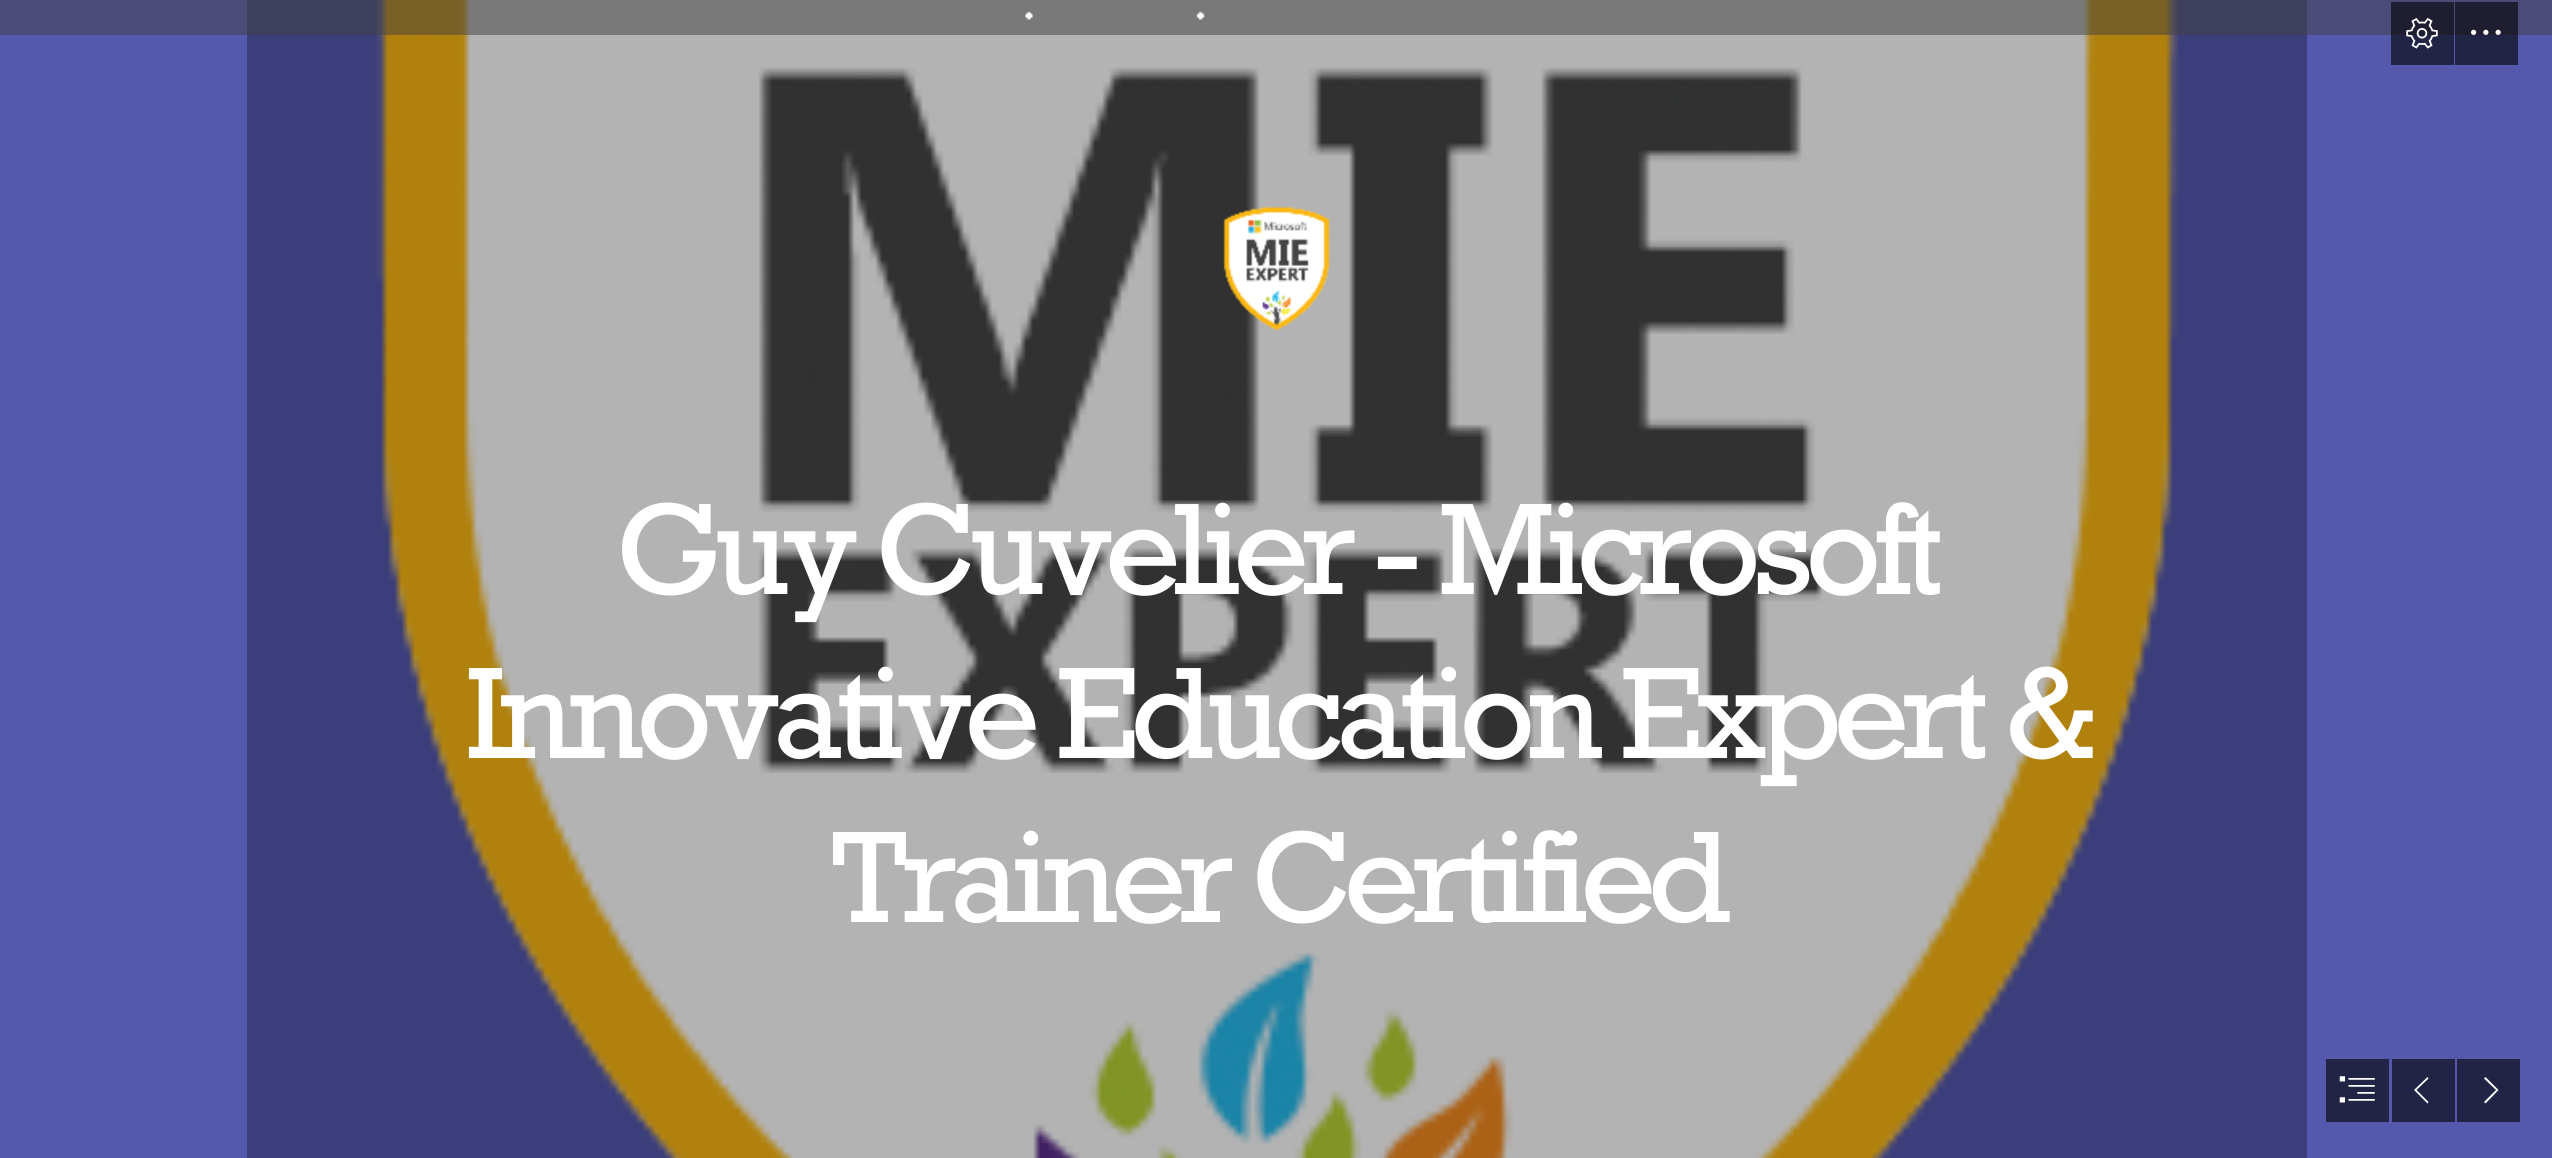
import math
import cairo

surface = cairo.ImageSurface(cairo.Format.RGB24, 2552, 1158)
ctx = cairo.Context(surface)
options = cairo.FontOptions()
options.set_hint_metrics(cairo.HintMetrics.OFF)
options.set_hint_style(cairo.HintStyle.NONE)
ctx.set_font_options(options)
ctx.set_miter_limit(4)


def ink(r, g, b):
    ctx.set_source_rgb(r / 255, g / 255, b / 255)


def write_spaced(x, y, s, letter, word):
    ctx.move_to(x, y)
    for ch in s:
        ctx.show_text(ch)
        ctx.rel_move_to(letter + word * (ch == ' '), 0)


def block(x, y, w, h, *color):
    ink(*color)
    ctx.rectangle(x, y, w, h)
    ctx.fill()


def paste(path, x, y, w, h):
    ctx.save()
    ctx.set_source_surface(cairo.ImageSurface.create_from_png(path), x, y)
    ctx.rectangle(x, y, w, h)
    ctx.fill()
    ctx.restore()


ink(85, 89, 174)
ctx.paint()
block(247, 0, 2060, 1158, 59, 62, 122)
paste("pic4.png", 375, 0, 1804, 1158)
ctx.set_source_rgba(0.251, 0.251, 0.251, 0.5)
ctx.rectangle(0, 0, 2552, 35)
ctx.fill()
ctx.set_source_rgba(0, 0, 0, 0.6)
ctx.rectangle(2391, 2, 63, 63)
ctx.fill()
paste("pic1.png", 2406, 18, 32, 31)
ctx.rectangle(2455, 2, 63, 63)
ctx.fill()
paste("pic2.png", 2471, 29, 30, 6)
paste("pic3.png", 1025, 11, 180, 9)
paste("pic5.png", 1223, 206, 107, 125)
ctx.select_font_face("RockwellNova")
ctx.set_font_size(122.25)
ink(255, 255, 255)
write_spaced(616, 594, "Guy Cuvelier - Microsoft", -7.95, 0)
write_spaced(465, 758, "Innovative Education Expert &", -7.95, 0)
write_spaced(829, 922, "Trainer Certified", -7.95, 0)
block(2326, 1059, 63, 63, 34, 36, 70)
paste("pic6.png", 2339, 1076, 36, 27)
block(2392, 1059, 63, 63, 34, 36, 70)
ink(255, 255, 255)
ctx.new_path()
ctx.move_to(2414, 1090)
ctx.line_to(2427.5, 1077)
ctx.line_to(2428.5, 1078.5)
ctx.line_to(2416.5, 1090)
ctx.line_to(2428.5, 1102)
ctx.line_to(2427.5, 1103.5)
ctx.close_path()
ctx.fill()
block(2457, 1059, 63, 63, 34, 36, 70)
ink(255, 255, 255)
ctx.new_path()
ctx.move_to(2485.5, 1103.5)
ctx.line_to(2484, 1102)
ctx.line_to(2496, 1090)
ctx.line_to(2484, 1078.5)
ctx.line_to(2485.5, 1077)
ctx.line_to(2498.5, 1090)
ctx.close_path()
ctx.fill()
surface.write_to_png("screenshot.png")
